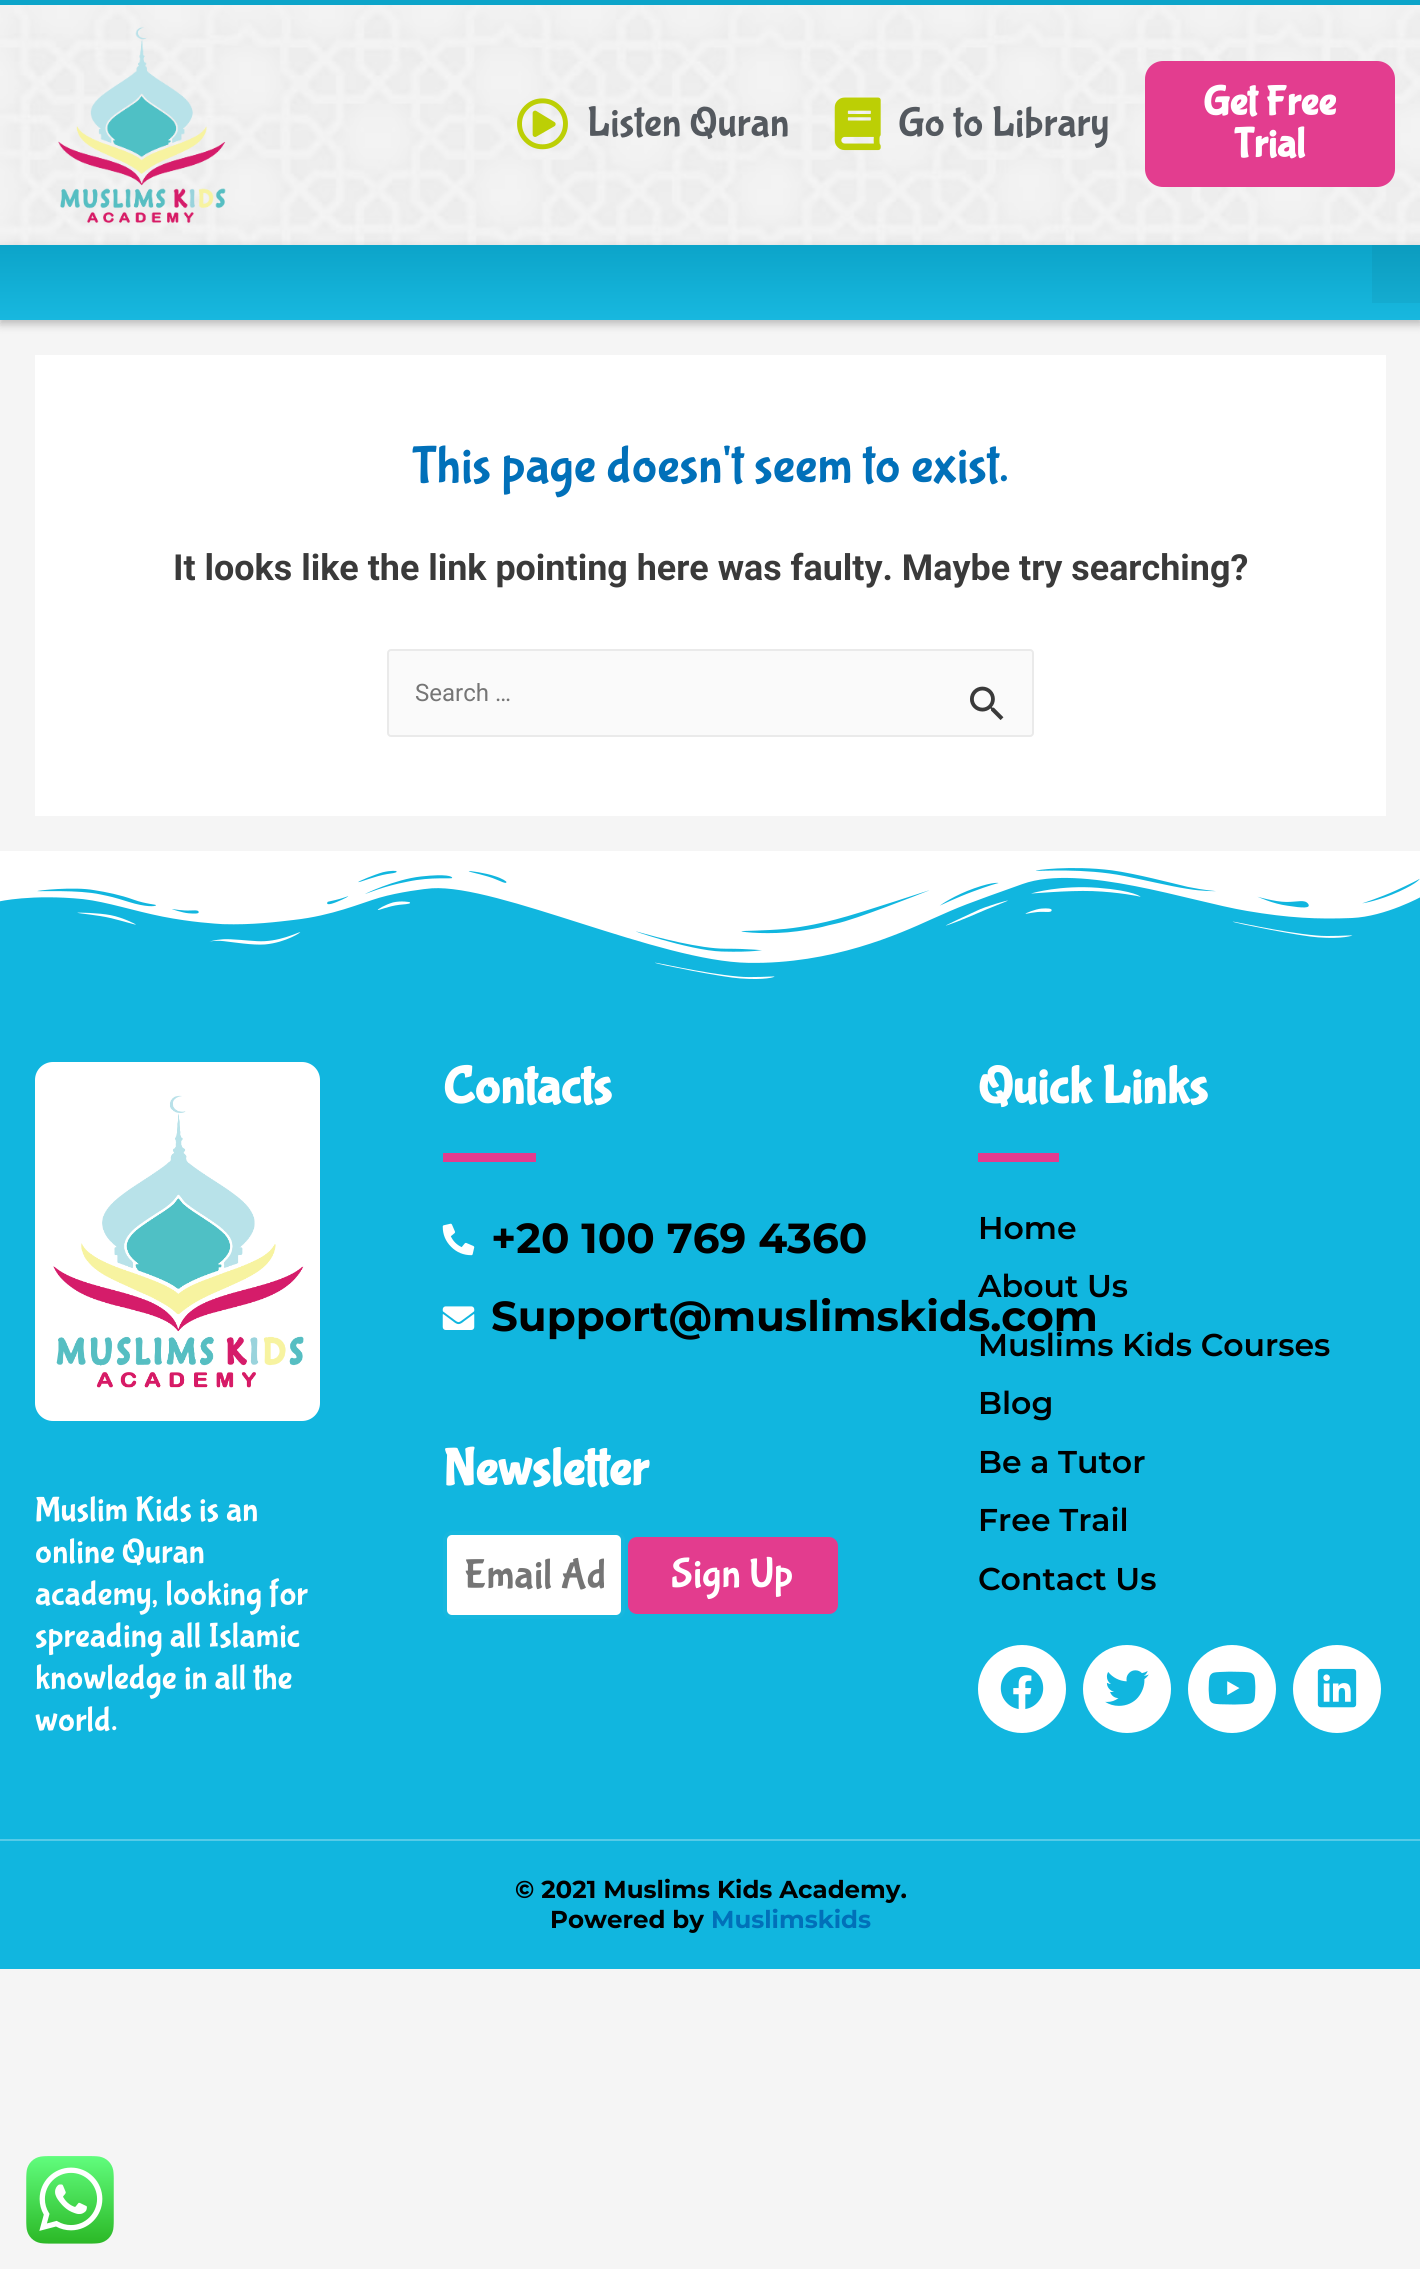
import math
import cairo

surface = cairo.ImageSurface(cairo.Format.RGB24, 1420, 2269)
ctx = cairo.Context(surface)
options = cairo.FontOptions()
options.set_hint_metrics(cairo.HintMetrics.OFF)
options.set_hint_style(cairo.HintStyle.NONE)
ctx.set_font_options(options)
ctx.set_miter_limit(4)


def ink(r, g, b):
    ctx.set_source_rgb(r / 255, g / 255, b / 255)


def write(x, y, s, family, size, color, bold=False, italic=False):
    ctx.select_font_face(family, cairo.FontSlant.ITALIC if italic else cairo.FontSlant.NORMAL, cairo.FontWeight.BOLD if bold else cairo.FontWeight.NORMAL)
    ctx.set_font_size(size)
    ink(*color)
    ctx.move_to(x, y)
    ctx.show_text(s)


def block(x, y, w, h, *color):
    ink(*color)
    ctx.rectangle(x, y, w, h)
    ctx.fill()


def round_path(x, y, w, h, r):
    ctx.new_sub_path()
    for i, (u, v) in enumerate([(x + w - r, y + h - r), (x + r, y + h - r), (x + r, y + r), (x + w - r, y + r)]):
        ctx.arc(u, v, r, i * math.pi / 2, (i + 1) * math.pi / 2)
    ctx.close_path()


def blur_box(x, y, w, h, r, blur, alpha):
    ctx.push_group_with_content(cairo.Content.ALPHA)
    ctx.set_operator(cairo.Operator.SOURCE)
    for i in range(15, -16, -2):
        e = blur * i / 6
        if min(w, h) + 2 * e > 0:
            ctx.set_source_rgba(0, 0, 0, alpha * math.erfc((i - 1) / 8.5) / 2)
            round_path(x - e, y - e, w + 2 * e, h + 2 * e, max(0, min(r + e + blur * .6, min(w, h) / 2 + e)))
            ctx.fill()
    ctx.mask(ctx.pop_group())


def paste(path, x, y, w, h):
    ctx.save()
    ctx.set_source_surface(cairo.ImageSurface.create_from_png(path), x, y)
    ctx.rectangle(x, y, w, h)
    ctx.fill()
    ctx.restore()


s1 = dict(family="Bubblegum Sans", size=42, color=(84, 89, 95))
s2 = dict(family="Bubblegum Sans", size=42, color=(255, 255, 255), bold=True)
s3 = dict(family="Bubblegum Sans", size=52.5, color=(1, 112, 185))
s4 = dict(family="Roboto", size=35.9, color=(58, 58, 58), bold=True)
s5 = dict(family="Roboto", size=24, color=(117, 117, 117))
s6 = dict(family="Bubblegum Sans", size=35, color=(255, 255, 255))
s7 = dict(family="Bubblegum Sans", size=52.5, color=(255, 255, 255), bold=True)
s8 = dict(family="Montserrat", size=42, color=(0, 0, 0), bold=True)
s9 = dict(family="Bubblegum Sans", size=42, color=(117, 117, 117))
s10 = dict(family="Bubblegum Sans", size=42, color=(255, 255, 255))
s11 = dict(family="Montserrat SemiBold", size=31.5, color=(0, 0, 0))
s12 = dict(family="Montserrat", size=24.5, color=(0, 0, 0), bold=True)
s13 = dict(family="Montserrat", size=24.5, color=(1, 112, 185), bold=True)

ink(245, 245, 245)
ctx.paint()
block(0, 0, 1420, 5, 12, 164, 201)
paste("pic1.png", 0, 5, 1420, 240)
paste("pic2.png", 58, 27, 168, 196)
paste("pic3.png", 517, 98, 51, 52)
write(587, 135, "Listen Quran", **s1)
paste("pic4.png", 834, 97, 47, 54)
write(898, 135, "Go to Library", **s1)
ink(227, 61, 143)
round_path(1145, 61, 250, 126, 18)
ctx.fill()
write(1203, 114, "Get Free", **s2)
write(1234, 156, "Trial", **s2)
ink(73, 73, 73)
blur_box(0, 249, 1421, 75, 0, 4.5, 0.35)
gradient = cairo.LinearGradient(711, 245, 711, 320)
gradient.add_color_stop_rgba(0, 0.047, 0.643, 0.788, 1)
gradient.add_color_stop_rgba(1, 0.094, 0.722, 0.875, 1)
ctx.set_source(gradient)
ctx.rectangle(0, 245, 1420, 75)
ctx.fill()
ctx.set_source_rgba(0, 0, 0, 0.05)
ctx.rectangle(1372, 245, 48, 58)
ctx.fill()
block(35, 355, 1351, 461, 255, 255, 255)
write(412, 481, "This page doesn't seem to exist.", **s3)
write(173, 580, "It looks like the link pointing here was faulty. Maybe try searching?", **s4)
ink(250, 250, 250)
round_path(388, 650, 645, 86, 3)
ctx.fill_preserve()
ink(234, 234, 234)
ctx.stroke()
write(415, 701, "Search …", **s5)
paste("pic5.png", 970, 686, 34, 34)
block(0, 868, 1420, 971, 17, 182, 223)
paste("pic6.png", 0, 851, 1420, 128)
ink(255, 255, 255)
round_path(35, 1062, 285, 359, 18)
ctx.fill()
paste("pic7.png", 53, 1095, 251, 293)
write(35, 1520, "Muslim Kids is an", **s6)
write(35, 1562, "online Quran", **s6)
write(35, 1604, "academy, looking for", **s6)
write(35, 1646, "spreading all Islamic", **s6)
write(35, 1688, "knowledge in all the", **s6)
write(35, 1730, "world.", **s6)
write(443, 1102, "Contacts", **s7)
block(443, 1153, 93, 9, 227, 60, 142)
paste("pic8.png", 442, 1223, 33, 33)
write(491, 1253, "+20 100 769 4360", **s8)
paste("pic9.png", 442, 1306, 33, 24)
write(491, 1331, "Support@muslimskids.com", **s8)
write(443, 1484, "Newsletter", **s7)
round_path(445, 1533, 178, 84, 7)
ctx.fill_preserve()
ink(23, 183, 222)
ctx.set_line_width(4)
ctx.stroke()
ctx.save()
ctx.rectangle(464, 1552, 140, 48)
ctx.clip()
write(464, 1587, "Email Ad", **s9)
ctx.restore()
ink(227, 60, 142)
round_path(628, 1537, 210, 77, 9)
ctx.fill()
write(671, 1586, "Sign Up", **s10)
write(978, 1102, "Quick Links", **s7)
block(978, 1153, 81, 9, 227, 60, 142)
write(978, 1239, "Home", **s11)
write(978, 1297, "About Us", **s11)
write(978, 1356, "Muslims Kids Courses", **s11)
write(978, 1414, "Blog", **s11)
write(978, 1473, "Be a Tutor", **s11)
write(978, 1531, "Free Trail", **s11)
write(978, 1590, "Contact Us", **s11)
ink(255, 255, 255)
ctx.new_path()
ctx.arc(1022, 1689, 44, 0, 2 * math.pi)
ctx.fill()
paste("pic10.png", 1000, 1666, 44, 43)
ctx.arc(1127, 1689, 44, 0, 2 * math.pi)
ctx.fill()
paste("pic11.png", 1105, 1670, 44, 36)
ctx.arc(1232, 1689, 44, 0, 2 * math.pi)
ctx.fill()
paste("pic12.png", 1208, 1671, 48, 34)
ctx.arc(1337, 1689, 44, 0, 2 * math.pi)
ctx.fill()
paste("pic13.png", 1317, 1668, 40, 40)
block(0, 1841, 1420, 128, 17, 182, 223)
block(0, 1839, 1420, 2, 86, 203, 232)
write(515, 1898, "© 2021 Muslims Kids Academy.", **s12)
write(550, 1928, "Powered by", **s12)
write(711, 1928, "Muslimskids", **s13)
paste("pic14.png", 26, 2156, 88, 88)
surface.write_to_png("screenshot.png")
